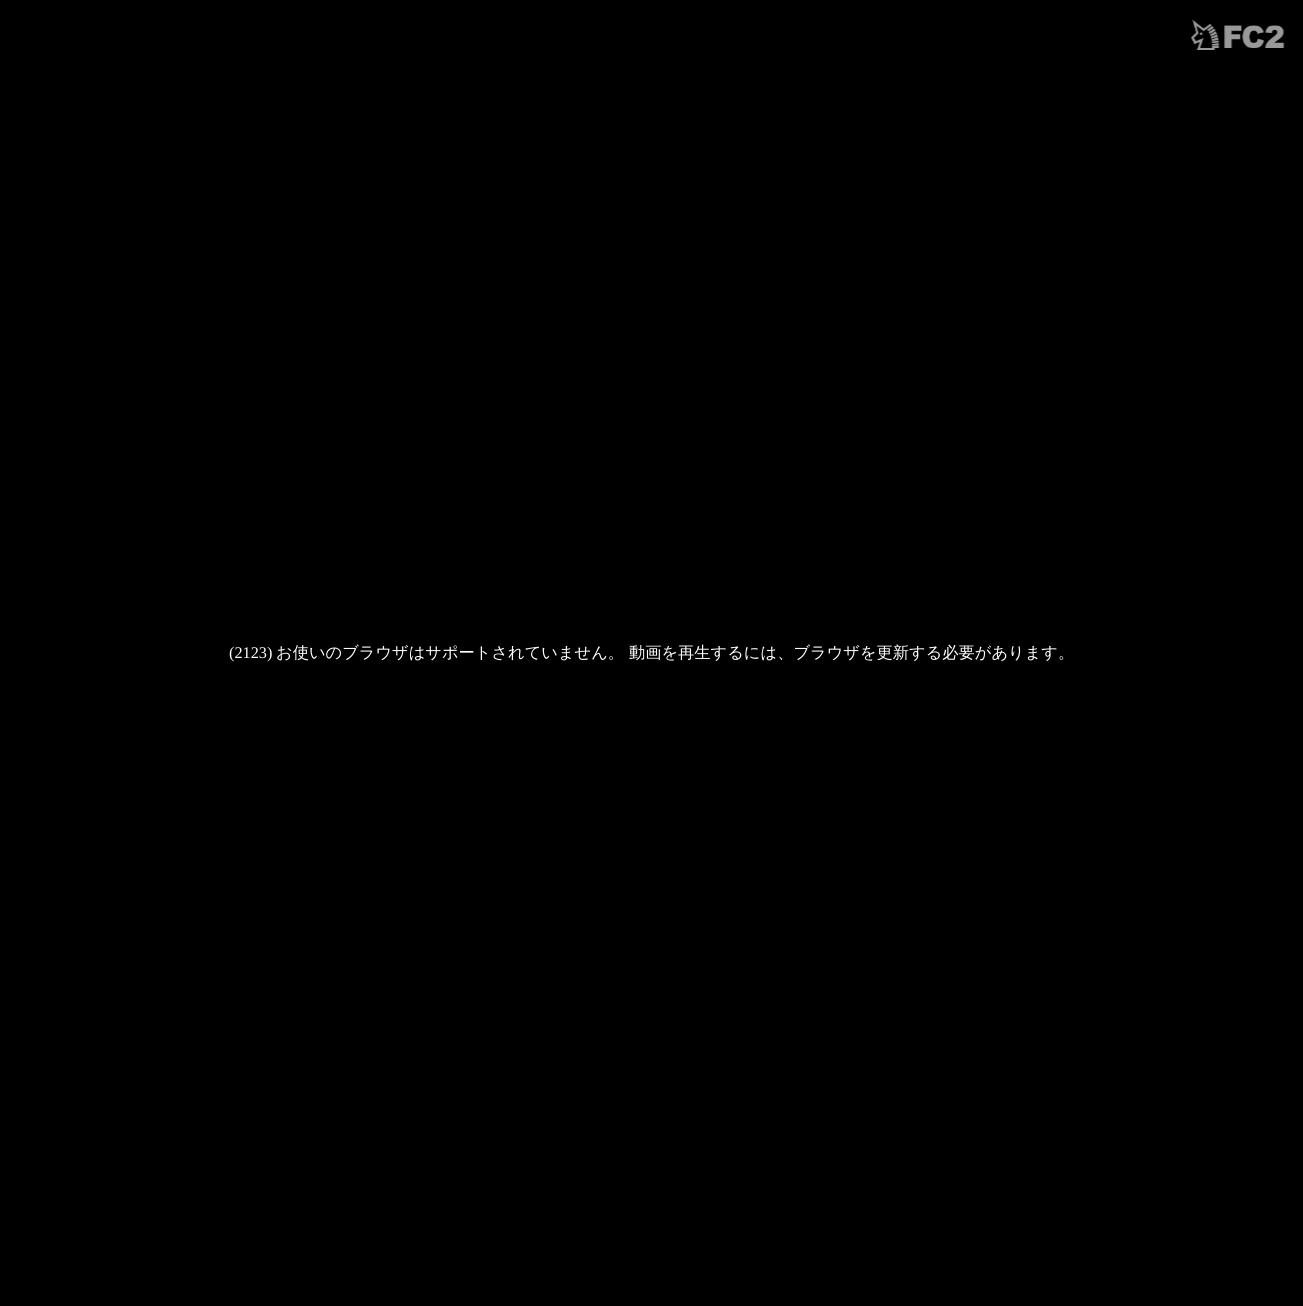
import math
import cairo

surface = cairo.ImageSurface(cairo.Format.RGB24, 1303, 1306)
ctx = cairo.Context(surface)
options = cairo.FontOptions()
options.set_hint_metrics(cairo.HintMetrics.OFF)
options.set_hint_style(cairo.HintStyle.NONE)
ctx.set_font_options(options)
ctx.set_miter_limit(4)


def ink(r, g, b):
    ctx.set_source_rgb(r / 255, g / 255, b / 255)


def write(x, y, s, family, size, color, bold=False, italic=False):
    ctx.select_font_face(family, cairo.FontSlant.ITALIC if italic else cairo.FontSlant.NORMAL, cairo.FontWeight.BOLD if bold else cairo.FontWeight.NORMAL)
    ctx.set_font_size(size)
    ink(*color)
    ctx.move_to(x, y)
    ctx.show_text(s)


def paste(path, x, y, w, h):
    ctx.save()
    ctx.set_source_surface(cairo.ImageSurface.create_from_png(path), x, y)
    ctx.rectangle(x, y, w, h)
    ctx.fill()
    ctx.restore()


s1 = dict(family="Liberation Serif", size=16.25, color=(255, 255, 255))
s2 = dict(family="WenQuanYi Zen Hei Medium", size=16.25, color=(255, 255, 255))

ink(0, 0, 0)
ctx.paint()
paste("pic1.png", 1191, 20, 94, 30)
write(229, 658, "(2123)", **s1)
write(276, 658, "お使いのブラウザはサポートされていません。 動画を再生するには、ブラウザを更新する必要があります。", **s2)
surface.write_to_png("screenshot.png")
